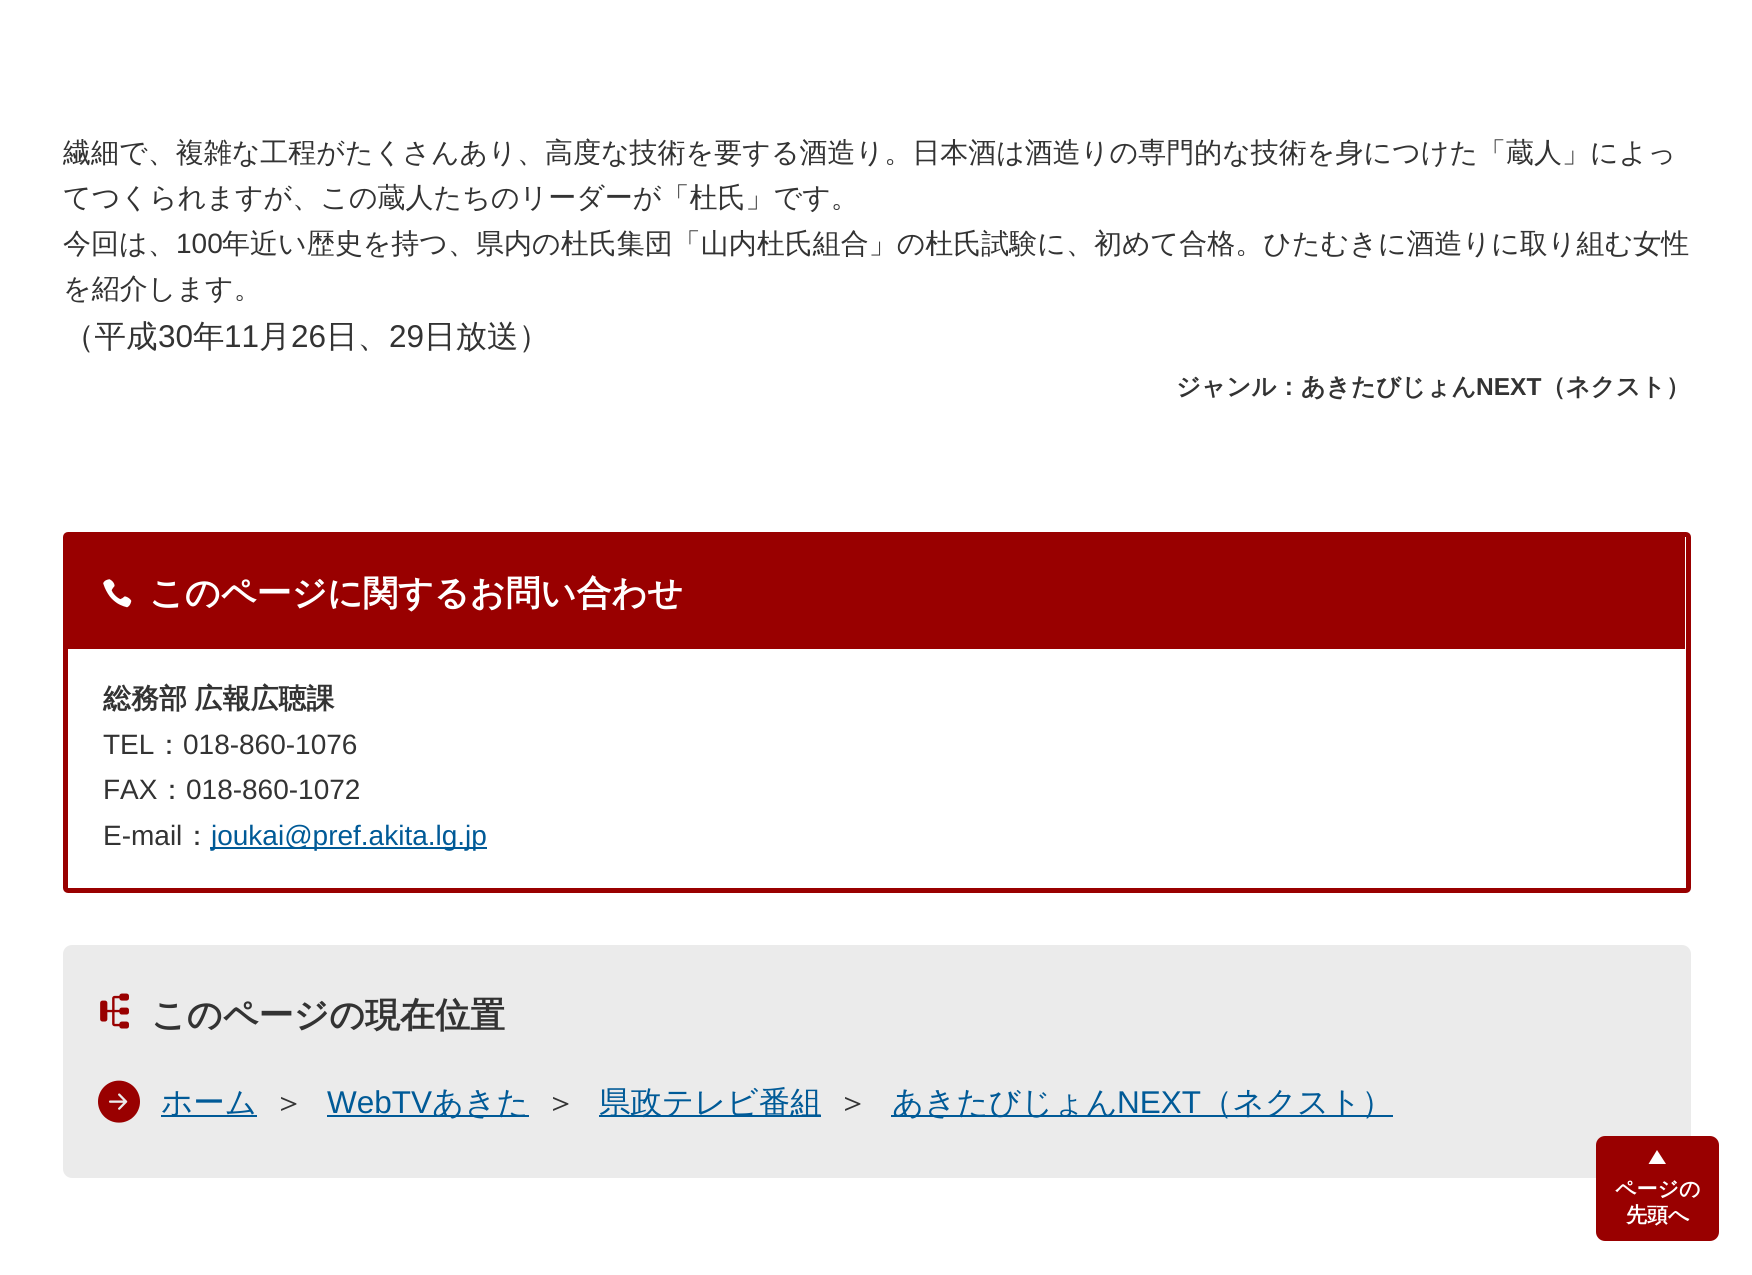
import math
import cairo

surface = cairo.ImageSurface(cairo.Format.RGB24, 1752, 1275)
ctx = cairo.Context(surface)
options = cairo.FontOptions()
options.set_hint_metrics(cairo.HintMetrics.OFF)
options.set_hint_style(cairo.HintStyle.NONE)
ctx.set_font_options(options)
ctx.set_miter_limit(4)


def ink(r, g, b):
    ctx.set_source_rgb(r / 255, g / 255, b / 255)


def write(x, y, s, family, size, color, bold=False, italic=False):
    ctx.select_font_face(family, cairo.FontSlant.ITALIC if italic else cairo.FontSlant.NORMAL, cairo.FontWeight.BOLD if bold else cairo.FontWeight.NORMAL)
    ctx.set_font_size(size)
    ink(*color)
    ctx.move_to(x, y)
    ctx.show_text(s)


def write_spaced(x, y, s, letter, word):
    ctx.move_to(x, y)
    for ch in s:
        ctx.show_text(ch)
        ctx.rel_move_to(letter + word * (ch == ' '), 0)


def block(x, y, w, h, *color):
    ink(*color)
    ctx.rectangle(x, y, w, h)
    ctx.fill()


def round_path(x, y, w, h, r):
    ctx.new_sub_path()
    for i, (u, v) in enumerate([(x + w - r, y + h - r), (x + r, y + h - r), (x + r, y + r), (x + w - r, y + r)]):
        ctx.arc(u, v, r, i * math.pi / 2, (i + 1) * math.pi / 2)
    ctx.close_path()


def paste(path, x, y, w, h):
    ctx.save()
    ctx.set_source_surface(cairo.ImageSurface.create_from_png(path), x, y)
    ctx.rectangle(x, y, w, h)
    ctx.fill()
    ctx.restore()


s1 = dict(family="WenQuanYi Zen Hei Medium", size=28, color=(51, 51, 51))
s2 = dict(family="Liberation Sans", size=28, color=(51, 51, 51))
s3 = dict(family="WenQuanYi Zen Hei Medium", size=31.5, color=(51, 51, 51))
s4 = dict(family="Liberation Sans", size=31.5, color=(51, 51, 51))
s5 = dict(family="WenQuanYi Zen Hei", size=24.5, color=(51, 51, 51), bold=True)
s6 = dict(family="Liberation Sans", size=24.5, color=(51, 51, 51), bold=True)
s7 = dict(family="WenQuanYi Zen Hei", size=35, color=(255, 255, 255), bold=True)
s8 = dict(family="Liberation Sans", size=28, color=(0, 90, 151))
s9 = dict(family="WenQuanYi Zen Hei", size=35, color=(51, 51, 51), bold=True)
s10 = dict(family="WenQuanYi Zen Hei Medium", size=31.5, color=(0, 90, 151))
s11 = dict(family="Liberation Sans", size=31.5, color=(0, 90, 151))
s12 = dict(family="WenQuanYi Zen Hei", size=21, color=(255, 255, 255), bold=True)

ink(255, 255, 255)
ctx.paint()
write(63, 162, "繊細で、複雑な工程がたくさんあり、高度な技術を要する酒造り。日本酒は酒造りの専門的な技術を身につけた「蔵人」によっ", **s1)
write(63, 207, "てつくられますが、この蔵人たちのリーダーが「杜氏」です。", **s1)
write(63, 253, "今回は、", **s1)
write(176, 253, "100", **s2)
write(222, 253, "年近い歴史を持つ、県内の杜氏集団「山内杜氏組合」の杜氏試験に、初めて合格。ひたむきに酒造りに取り組む女性", **s1)
write(63, 298, "を紹介します。", **s1)
write(63, 347, "（平成", **s3)
write(158, 347, "30", **s4)
write(193, 347, "年", **s3)
write(224, 347, "11", **s4)
write(259, 347, "月", **s3)
write(291, 347, "26", **s4)
write(326, 347, "日、", **s3)
write(389, 347, "29", **s4)
write(424, 347, "日放送）", **s3)
write(1176, 395, "ジャンル：あきたびじょん", **s5)
write(1476, 395, "NEXT", **s6)
write(1541, 395, "（ネクスト）", **s5)
round_path(65.5, 534.5, 1623, 356, 2.5)
ink(153, 0, 0)
ctx.set_line_width(5)
ctx.stroke()
block(68, 537, 1617, 112, 153, 0, 0)
paste("pic1.png", 103, 579, 29, 29)
write(149, 605, "このページに関するお問い合わせ", **s7)
ctx.set_font_size(28)
ink(51, 51, 51)
write_spaced(103, 708, "総務部 広報広聴課", 0, -1)
write(103, 754, "TEL", **s2)
write(155, 754, "：", **s1)
write(183, 754, "018-860-1076", **s2)
write(103, 799, "FAX", **s2)
write(158, 799, "：", **s1)
write(186, 799, "018-860-1072", **s2)
write(103, 845, "E-mail", **s2)
write(183, 845, "：", **s1)
block(210, 847, 277, 2, 0, 90, 151)
write(211, 845, "joukai@pref.akita.lg.jp", **s8)
ink(235, 235, 235)
round_path(63, 945, 1628, 233, 9)
ctx.fill()
paste("pic2.png", 100, 993, 29, 36)
write(151, 1027, "このページの現在位置", **s9)
paste("pic3.png", 98, 1080, 42, 43)
block(161, 1115, 96, 2, 0, 90, 151)
write(161, 1113, "ホーム", **s10)
write(273, 1113, "＞", **s3)
write(327, 1113, "WebTV", **s11)
block(327, 1115, 202, 2, 0, 90, 151)
write(432, 1113, "あきた", **s10)
write(545, 1113, "＞", **s3)
block(599, 1115, 222, 2, 0, 90, 151)
write(599, 1113, "県政テレビ番組", **s10)
write(837, 1113, "＞", **s3)
block(891, 1115, 502, 2, 0, 90, 151)
write(892, 1113, "あきたびじょん", **s10)
write(1117, 1113, "NEXT", **s11)
write(1201, 1113, "（ネクスト）", **s10)
ink(153, 0, 0)
round_path(1596, 1136, 123, 105, 9)
ctx.fill()
ink(255, 255, 255)
ctx.new_path()
ctx.move_to(1666, 1164)
ctx.line_to(1648.5, 1164)
ctx.line_to(1657, 1150)
ctx.close_path()
ctx.fill()
write(1615, 1196, "ページの", **s12)
write(1626, 1222, "先頭へ", **s12)
surface.write_to_png("screenshot.png")
